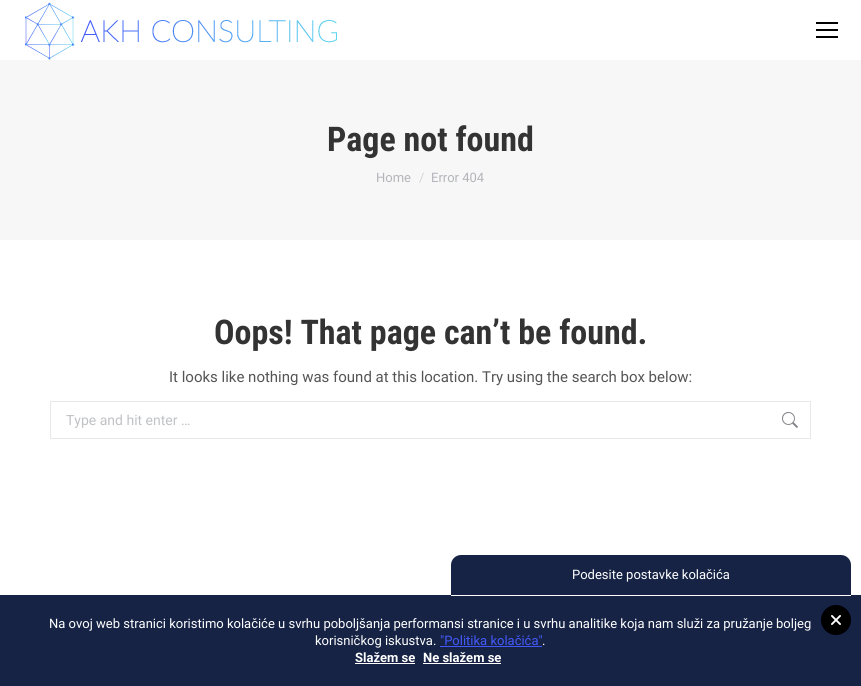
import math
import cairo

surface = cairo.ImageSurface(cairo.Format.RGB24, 861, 686)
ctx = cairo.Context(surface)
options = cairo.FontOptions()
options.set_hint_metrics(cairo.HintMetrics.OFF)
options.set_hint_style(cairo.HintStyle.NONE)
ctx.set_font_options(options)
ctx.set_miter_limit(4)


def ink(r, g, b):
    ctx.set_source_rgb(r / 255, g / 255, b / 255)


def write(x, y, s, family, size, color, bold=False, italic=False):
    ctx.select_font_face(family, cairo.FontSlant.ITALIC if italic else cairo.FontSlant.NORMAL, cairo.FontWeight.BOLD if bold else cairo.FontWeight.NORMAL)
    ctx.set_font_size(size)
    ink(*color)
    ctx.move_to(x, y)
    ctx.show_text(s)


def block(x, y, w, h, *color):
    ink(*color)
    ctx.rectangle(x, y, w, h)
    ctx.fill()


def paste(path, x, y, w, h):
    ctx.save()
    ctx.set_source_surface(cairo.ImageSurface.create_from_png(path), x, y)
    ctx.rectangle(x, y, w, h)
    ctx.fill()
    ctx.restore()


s1 = dict(family="Roboto Condensed", size=34, color=(51, 51, 51), bold=True)
s2 = dict(family="Roboto", size=13, color=(180, 181, 187))
s3 = dict(family="Roboto", size=13, color=(214, 214, 217))
s4 = dict(family="Roboto", size=15, color=(85, 85, 85))
s5 = dict(family="Roboto", size=14, color=(193, 194, 197))
s6 = dict(family="Roboto", size=13, color=(255, 255, 255))
s7 = dict(family="Roboto", size=13, color=(68, 89, 250))
s8 = dict(family="Roboto", size=13, color=(255, 255, 255), bold=True)

ink(255, 255, 255)
ctx.paint()
paste("pic1.png", 25, 2, 312, 58)
block(816, 22, 22, 2, 0, 0, 0)
block(816, 29, 22, 2, 0, 0, 0)
block(816, 36, 22, 2, 0, 0, 0)
block(0, 60, 861, 180, 247, 247, 247)
write(327, 151, "Page not found", **s1)
write(376, 182, "Home", **s2)
write(419, 182, "/", **s3)
write(431, 182, "Error 404", **s2)
write(214, 344, "Oops! That page can’t be found.", **s1)
write(169, 382, "It looks like nothing was found at this location. Try using the search box below:", **s4)
ctx.rectangle(50.5, 401.5, 760, 37)
ink(232, 232, 232)
ctx.set_line_width(1)
ctx.stroke()
write(66, 425, "Type and hit enter …", **s5)
paste("pic2.png", 782, 412, 16, 16)
block(0, 595, 861, 91, 22, 35, 69)
ctx.new_path()
ctx.move_to(461, 555)
ctx.line_to(841, 555)
ctx.curve_to(846.5, 555, 851, 559.5, 851, 565)
ctx.line_to(851, 596)
ctx.line_to(451, 596)
ctx.line_to(451, 565)
ctx.curve_to(451, 559.5, 455.5, 555, 461, 555)
ctx.close_path()
ctx.fill()
block(451, 595, 400, 1, 255, 255, 255)
write(572, 579, "Podesite postavke kolačića", **s6)
write(49, 628, "Na ovoj web stranici koristimo kolačiće u svrhu poboljšanja performansi stranice i u svrhu analitike koja nam služi za pružanje boljeg", **s6)
write(315, 645, "korisničkog iskustva.", **s6)
write(440, 645, "\"Politika kolačića\"", **s7)
block(440, 646, 102, 1, 68, 89, 250)
write(542, 645, ".", **s6)
paste("pic3.png", 821, 605, 30, 30)
write(355, 662, "Slažem se", **s8)
block(355, 663, 60, 1, 255, 255, 255)
write(423, 662, "Ne slažem se", **s8)
block(423, 663, 78, 1, 255, 255, 255)
surface.write_to_png("screenshot.png")
